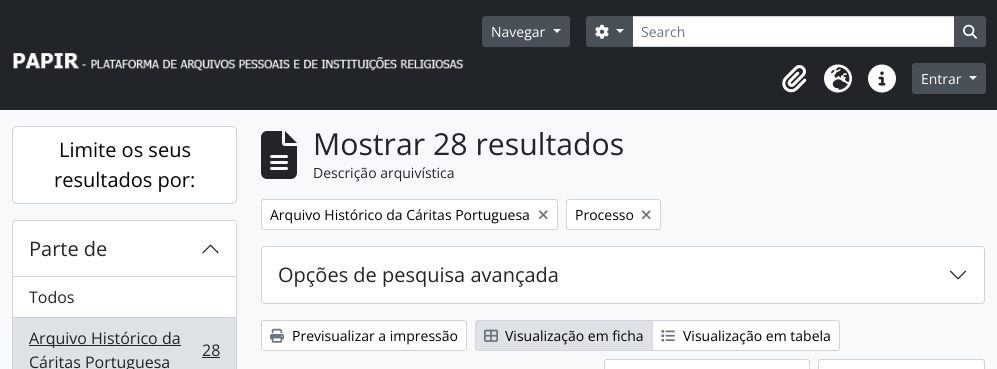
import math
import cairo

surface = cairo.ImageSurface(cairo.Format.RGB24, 997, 369)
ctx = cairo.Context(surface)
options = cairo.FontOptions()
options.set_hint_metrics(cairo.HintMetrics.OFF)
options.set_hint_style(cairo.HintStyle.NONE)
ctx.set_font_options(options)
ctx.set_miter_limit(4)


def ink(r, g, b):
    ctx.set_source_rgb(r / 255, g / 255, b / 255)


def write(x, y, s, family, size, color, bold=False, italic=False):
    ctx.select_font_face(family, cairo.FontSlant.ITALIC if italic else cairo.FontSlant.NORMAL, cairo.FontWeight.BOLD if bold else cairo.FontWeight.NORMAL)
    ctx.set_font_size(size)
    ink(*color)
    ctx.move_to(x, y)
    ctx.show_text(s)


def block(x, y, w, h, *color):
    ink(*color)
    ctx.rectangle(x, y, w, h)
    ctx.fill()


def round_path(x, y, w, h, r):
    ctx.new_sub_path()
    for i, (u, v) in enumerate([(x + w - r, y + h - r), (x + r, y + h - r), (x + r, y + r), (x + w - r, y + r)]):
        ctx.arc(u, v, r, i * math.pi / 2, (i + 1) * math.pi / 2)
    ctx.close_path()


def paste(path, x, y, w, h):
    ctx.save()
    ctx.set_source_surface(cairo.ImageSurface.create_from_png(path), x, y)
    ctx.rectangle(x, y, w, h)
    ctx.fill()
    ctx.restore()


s1 = dict(family="Open Sans", size=14, color=(255, 255, 255))
s2 = dict(family="Open Sans", size=14, color=(108, 117, 125))
s3 = dict(family="Open Sans", size=20, color=(0, 0, 0))
s4 = dict(family="Open Sans", size=20, color=(33, 37, 41))
s5 = dict(family="Open Sans", size=16, color=(33, 37, 41))
s6 = dict(family="Open Sans", size=30.25, color=(33, 37, 41))
s7 = dict(family="Open Sans", size=14, color=(33, 37, 41))
s8 = dict(family="Open Sans", size=14, color=(0, 0, 0))

ink(248, 249, 250)
ctx.paint()
block(0, 0, 997, 110, 33, 37, 41)
paste("pic1.png", 13, 53, 451, 18)
ink(73, 80, 87)
round_path(482.5, 16.5, 87, 30, 2.5)
ctx.fill_preserve()
ctx.set_line_width(1)
ctx.stroke()
write(491, 37, "Navegar", **s1)
ctx.new_path()
ctx.move_to(553, 29)
ctx.line_to(561, 29)
ctx.line_to(557, 33)
ctx.close_path()
ctx.fill()
ctx.rectangle(632.5, 16.5, 322, 30)
ctx.fill_preserve()
ink(206, 212, 218)
ctx.stroke()
ink(73, 80, 87)
ctx.new_path()
ctx.move_to(589, 16.5)
ctx.line_to(632.5, 16.5)
ctx.line_to(632.5, 46.5)
ctx.line_to(589, 46.5)
ctx.curve_to(587.5, 46.5, 586.5, 45.5, 586.5, 44)
ctx.line_to(586.5, 19)
ctx.curve_to(586.5, 17.5, 587.5, 16.5, 589, 16.5)
ctx.close_path()
ctx.fill_preserve()
ctx.stroke()
paste("pic2.png", 595, 24, 14, 15)
ink(255, 255, 255)
ctx.new_path()
ctx.move_to(616, 29)
ctx.line_to(624, 29)
ctx.line_to(620, 33)
ctx.close_path()
ctx.fill()
write(641, 37, "Search", **s2)
ink(73, 80, 87)
ctx.new_path()
ctx.move_to(954.5, 16.5)
ctx.line_to(983, 16.5)
ctx.curve_to(984.5, 16.5, 985.5, 17.5, 985.5, 19)
ctx.line_to(985.5, 44)
ctx.curve_to(985.5, 45.5, 984.5, 46.5, 983, 46.5)
ctx.line_to(954.5, 46.5)
ctx.close_path()
ctx.fill_preserve()
ctx.stroke()
paste("pic3.png", 963, 24, 14, 15)
paste("pic4.png", 782, 65, 25, 28)
paste("pic5.png", 824, 64, 28, 29)
paste("pic6.png", 868, 64, 28, 29)
round_path(912.5, 63.5, 73, 30, 2.5)
ctx.fill_preserve()
ctx.stroke()
write(921, 84, "Entrar", **s1)
ctx.new_path()
ctx.move_to(969, 76)
ctx.line_to(977, 76)
ctx.line_to(973, 80)
ctx.close_path()
ctx.fill()
round_path(12.5, 126.5, 224, 77, 4.5)
ctx.fill_preserve()
ink(206, 212, 218)
ctx.stroke()
write(59, 157, "Limite os seus", **s3)
write(54, 187, "resultados por:", **s3)
ink(255, 255, 255)
round_path(12.5, 220.5, 224, 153, 3.5)
ctx.fill_preserve()
ink(206, 212, 218)
ctx.stroke()
ink(255, 255, 255)
ctx.new_path()
ctx.move_to(16, 221)
ctx.line_to(233, 221)
ctx.curve_to(234.5, 221, 236, 222.5, 236, 224)
ctx.line_to(236, 277)
ctx.line_to(13, 277)
ctx.line_to(13, 224)
ctx.curve_to(13, 222.5, 14.5, 221, 16, 221)
ctx.close_path()
ctx.fill()
block(13, 276, 223, 1, 206, 212, 218)
write(29, 256, "Parte de", **s4)
paste("pic7.png", 202, 244, 17, 10)
block(13, 317, 223, 1, 206, 212, 218)
write(29, 303, "Todos", **s5)
block(13, 318, 223, 51, 222, 226, 230)
block(29, 345, 152, 1, 33, 37, 41)
write(29, 344, "Arquivo Histórico da", **s5)
write(202, 356, "28", **s5)
block(202, 357, 18, 1, 33, 37, 41)
write(29, 368, "Cáritas Portuguesa", **s5)
paste("pic8.png", 261, 131, 36, 48)
write(313, 155, "Mostrar 28 resultados", **s6)
write(313, 178, "Descrição arquivística", **s7)
ink(255, 255, 255)
round_path(261.5, 199.5, 296, 30, 2.5)
ctx.fill_preserve()
ink(206, 212, 218)
ctx.stroke()
write(270, 220, "Arquivo Histórico da Cáritas Portuguesa", **s8)
paste("pic9.png", 538, 210, 10, 10)
ink(255, 255, 255)
round_path(566.5, 199.5, 94, 30, 2.5)
ctx.fill_preserve()
ink(206, 212, 218)
ctx.stroke()
write(575, 220, "Processo", **s8)
paste("pic9.png", 641, 210, 10, 10)
round_path(261.5, 246.5, 723, 57, 3.5)
ink(206, 212, 218)
ctx.stroke()
ink(255, 255, 255)
round_path(262, 247, 722, 56, 3)
ctx.fill()
write(278, 282, "Opções de pesquisa avançada", **s4)
paste("pic10.png", 949, 270, 18, 10)
ink(255, 255, 255)
round_path(261.5, 320.5, 205, 30, 2.5)
ctx.fill_preserve()
ink(206, 212, 218)
ctx.stroke()
paste("pic11.png", 270, 328, 14, 15)
write(292, 341, "Previsualizar a impressão", **s8)
ink(255, 255, 255)
ctx.new_path()
ctx.move_to(652.5, 320.5)
ctx.line_to(837, 320.5)
ctx.curve_to(838.5, 320.5, 839.5, 321.5, 839.5, 323)
ctx.line_to(839.5, 348)
ctx.curve_to(839.5, 349.5, 838.5, 350.5, 837, 350.5)
ctx.line_to(652.5, 350.5)
ctx.close_path()
ctx.fill_preserve()
ink(206, 212, 218)
ctx.stroke()
ink(222, 226, 230)
ctx.new_path()
ctx.move_to(478, 320.5)
ctx.line_to(652.5, 320.5)
ctx.line_to(652.5, 350.5)
ctx.line_to(478, 350.5)
ctx.curve_to(476.5, 350.5, 475.5, 349.5, 475.5, 348)
ctx.line_to(475.5, 323)
ctx.curve_to(475.5, 321.5, 476.5, 320.5, 478, 320.5)
ctx.close_path()
ctx.fill_preserve()
ink(211, 216, 222)
ctx.stroke()
paste("pic12.png", 484, 329, 14, 13)
write(505, 341, "Visualização em ficha", **s8)
paste("pic13.png", 661, 330, 14, 12)
write(683, 341, "Visualização em tabela", **s8)
ink(255, 255, 255)
round_path(604.5, 359.5, 205, 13, 2.5)
ctx.fill_preserve()
ink(206, 212, 218)
ctx.stroke()
ink(255, 255, 255)
round_path(818.5, 359.5, 166, 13, 2.5)
ctx.fill_preserve()
ink(206, 212, 218)
ctx.stroke()
surface.write_to_png("screenshot.png")
